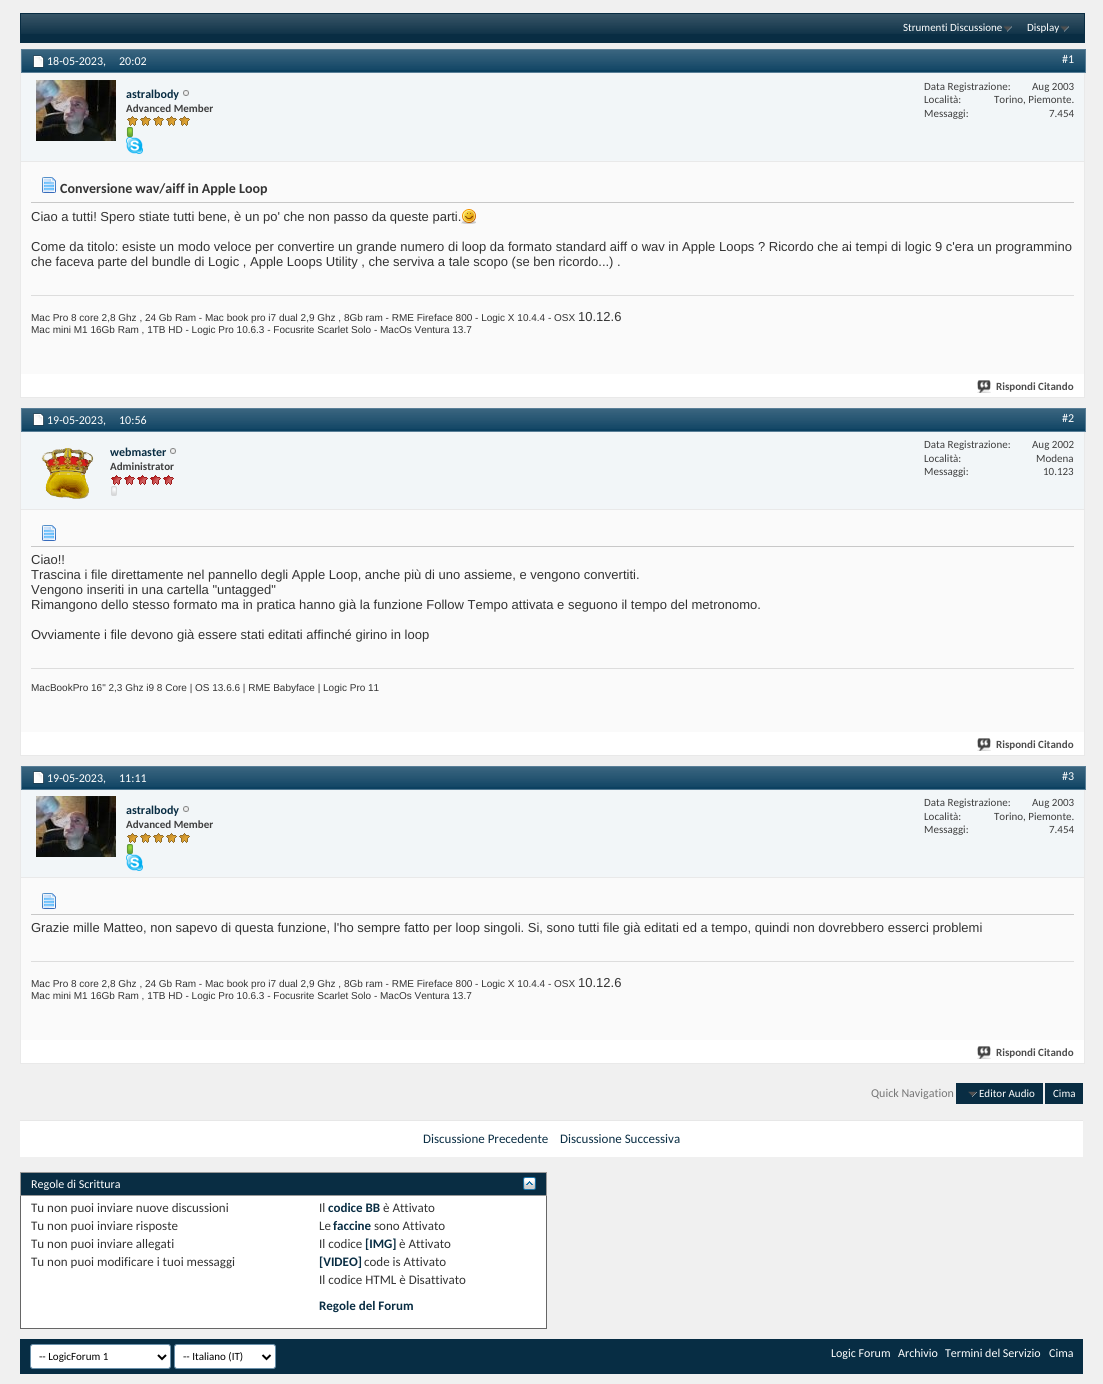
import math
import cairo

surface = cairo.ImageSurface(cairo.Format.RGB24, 1103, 1384)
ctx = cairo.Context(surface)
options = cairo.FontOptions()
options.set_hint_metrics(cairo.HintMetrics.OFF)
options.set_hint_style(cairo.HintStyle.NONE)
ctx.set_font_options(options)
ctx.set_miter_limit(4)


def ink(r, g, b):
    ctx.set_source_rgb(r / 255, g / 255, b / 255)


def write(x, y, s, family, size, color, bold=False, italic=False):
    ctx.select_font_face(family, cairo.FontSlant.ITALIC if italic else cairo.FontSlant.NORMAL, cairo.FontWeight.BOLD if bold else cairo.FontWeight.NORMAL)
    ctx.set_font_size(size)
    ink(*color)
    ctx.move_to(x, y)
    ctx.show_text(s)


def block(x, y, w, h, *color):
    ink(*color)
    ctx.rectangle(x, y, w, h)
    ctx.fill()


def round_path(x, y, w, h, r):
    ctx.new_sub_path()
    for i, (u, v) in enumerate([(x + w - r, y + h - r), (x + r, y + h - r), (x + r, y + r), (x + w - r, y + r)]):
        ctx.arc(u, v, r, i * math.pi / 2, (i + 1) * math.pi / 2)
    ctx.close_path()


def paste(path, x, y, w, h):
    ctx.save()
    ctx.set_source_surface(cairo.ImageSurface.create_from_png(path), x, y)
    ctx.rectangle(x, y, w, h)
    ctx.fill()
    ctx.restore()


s1 = dict(family="Carlito", size=11, color=(255, 255, 255))
s2 = dict(family="Carlito", size=12, color=(255, 255, 255))
s3 = dict(family="Carlito", size=12, color=(9, 45, 67), bold=True)
s4 = dict(family="Carlito", size=11, color=(62, 62, 62), bold=True)
s5 = dict(family="Carlito", size=11, color=(62, 62, 62))
s6 = dict(family="Carlito", size=14, color=(51, 51, 51), bold=True)
s7 = dict(family="Liberation Sans", size=13, color=(51, 51, 51))
s8 = dict(family="Liberation Sans", size=10, color=(51, 51, 51))
s9 = dict(family="Carlito", size=11, color=(78, 78, 78), bold=True)
s10 = dict(family="Carlito", size=12, color=(119, 119, 119))
s11 = dict(family="Carlito", size=13, color=(9, 45, 67))
s12 = dict(family="Carlito", size=13, color=(51, 51, 51))
s13 = dict(family="Carlito", size=13, color=(9, 45, 67), bold=True)
s14 = dict(family="Carlito", size=11, color=(0, 0, 0))

ink(240, 240, 240)
ctx.paint()
block(21, 14, 1063, 28, 9, 45, 67)
paste("pic1.png", 21, 14, 1063, 20)
ctx.rectangle(20.5, 13.5, 1064, 29)
ctx.set_line_width(1)
ctx.stroke()
paste("pic2.png", 1003, 25, 9, 7)
write(903, 31, "Strumenti Discussione", **s1)
paste("pic2.png", 1060, 25, 9, 7)
write(1027, 31, "Display", **s1)
ctx.rectangle(20.5, 49.5, 1064, 348)
ink(233, 233, 233)
ctx.stroke()
block(22, 50, 1063, 22, 12, 65, 97)
paste("pic3.png", 22, 50, 1063, 20)
ctx.rectangle(21.5, 49.5, 1064, 23)
ink(90, 127, 151)
ctx.stroke()
paste("pic4.png", 33, 55, 11, 13)
write(47, 65, "18-05-2023,", **s2)
write(119, 65, "20:02", **s2)
write(1062, 63, "#1", **s2)
block(21, 73, 1063, 88, 242, 246, 248)
block(21, 161, 1063, 1, 233, 233, 233)
paste("pic5.png", 36, 80, 80, 61)
write(126, 98, "astralbody", **s3)
paste("pic6.png", 183, 90, 6, 6)
write(126, 112, "Advanced Member", **s4)
paste("pic7.png", 127, 116, 11, 10)
paste("pic7.png", 140, 116, 11, 10)
paste("pic7.png", 153, 116, 11, 10)
paste("pic7.png", 166, 116, 11, 10)
paste("pic7.png", 179, 116, 11, 10)
paste("pic8.png", 126, 127, 7, 10)
paste("pic9.png", 126, 137, 17, 17)
write(924, 90, "Data Registrazione:", **s5)
write(1032, 90, "Aug 2003", **s5)
write(924, 103, "Località:", **s5)
write(994, 103, "Torino, Piemonte.", **s5)
write(924, 117, "Messaggi:", **s5)
write(1049, 117, "7.454", **s5)
block(21, 162, 1063, 212, 250, 250, 250)
block(31, 202, 1043, 1, 200, 200, 200)
paste("pic10.png", 42, 177, 14, 16)
write(60, 193, "Conversione wav/aiff in Apple Loop", **s6)
write(31, 221, "Ciao a tutti! Spero stiate tutti bene, è un po' che non passo da queste parti.", **s7)
paste("pic11.png", 461, 209, 15, 15)
write(31, 251, "Come da titolo: esiste un modo veloce per convertire un grande numero di loop da formato standard aiff o wav in Apple Loops ? Ricordo che ai tempi di logic 9 c'era un programmino", **s7)
write(31, 266, "che faceva parte del bundle di Logic , Apple Loops Utility , che serviva a tale scopo (se ben ricordo...) .", **s7)
block(31, 295, 1043, 1, 221, 221, 221)
write(31, 321, "Mac Pro 8 core 2,8 Ghz , 24 Gb Ram - Mac book pro i7 dual 2,9 Ghz , 8Gb ram - RME Fireface 800 - Logic X 10.4.4 - OSX", **s8)
write(578, 321, "10.12.6", **s7)
write(31, 333, "Mac mini M1 16Gb Ram , 1TB HD - Logic Pro 10.6.3 - Focusrite Scarlet Solo - MacOs Ventura 13.7", **s8)
block(21, 374, 1063, 23, 255, 255, 255)
paste("pic12.png", 977, 380, 14, 13)
write(996, 390, "Rispondi Citando", **s9)
ctx.rectangle(20.5, 408.5, 1064, 347)
ink(233, 233, 233)
ctx.stroke()
block(22, 409, 1063, 22, 12, 65, 97)
paste("pic3.png", 22, 409, 1063, 20)
ctx.rectangle(21.5, 408.5, 1064, 23)
ink(90, 127, 151)
ctx.stroke()
paste("pic13.png", 33, 413, 11, 13)
write(47, 424, "19-05-2023,", **s2)
write(119, 424, "10:56", **s2)
write(1062, 422, "#2", **s2)
block(21, 432, 1063, 77, 242, 246, 248)
block(21, 509, 1063, 1, 233, 233, 233)
paste("pic14.png", 41, 447, 53, 52)
write(110, 456, "webmaster", **s3)
paste("pic6.png", 170, 448, 6, 6)
write(110, 470, "Administrator", **s4)
paste("pic15.png", 111, 475, 11, 10)
paste("pic15.png", 124, 475, 11, 10)
paste("pic15.png", 137, 475, 11, 10)
paste("pic15.png", 150, 475, 11, 10)
paste("pic15.png", 163, 475, 11, 10)
paste("pic16.png", 111, 486, 6, 10)
write(924, 448, "Data Registrazione:", **s5)
write(1032, 448, "Aug 2002", **s5)
write(924, 462, "Località:", **s5)
write(1036, 462, "Modena", **s5)
write(924, 475, "Messaggi:", **s5)
write(1043, 475, "10.123", **s5)
block(21, 510, 1063, 222, 250, 250, 250)
block(31, 546, 1043, 1, 200, 200, 200)
paste("pic10.png", 42, 525, 14, 16)
write(31, 564, "Ciao!!", **s7)
write(31, 579, "Trascina i file direttamente nel pannello degli Apple Loop, anche più di uno assieme, e vengono convertiti.", **s7)
write(31, 594, "Vengono inseriti in una cartella \"untagged\"", **s7)
write(31, 609, "Rimangono dello stesso formato ma in pratica hanno già la funzione Follow Tempo attivata e seguono il tempo del metronomo.", **s7)
write(31, 639, "Ovviamente i file devono già essere stati editati affinché girino in loop", **s7)
block(31, 668, 1043, 1, 221, 221, 221)
write(31, 691, "MacBookPro 16\" 2,3 Ghz i9 8 Core | OS 13.6.6 | RME Babyface | Logic Pro 11", **s8)
block(21, 732, 1063, 23, 255, 255, 255)
paste("pic12.png", 977, 738, 14, 13)
write(996, 748, "Rispondi Citando", **s9)
ctx.rectangle(20.5, 766.5, 1064, 297)
ink(233, 233, 233)
ctx.stroke()
block(22, 767, 1063, 22, 12, 65, 97)
paste("pic3.png", 22, 767, 1063, 20)
ctx.rectangle(21.5, 766.5, 1064, 23)
ink(90, 127, 151)
ctx.stroke()
paste("pic13.png", 33, 771, 11, 13)
write(47, 782, "19-05-2023,", **s2)
write(119, 782, "11:11", **s2)
write(1062, 780, "#3", **s2)
block(21, 790, 1063, 87, 242, 246, 248)
block(21, 877, 1063, 1, 233, 233, 233)
paste("pic5.png", 36, 796, 80, 61)
write(126, 814, "astralbody", **s3)
paste("pic6.png", 183, 806, 6, 6)
write(126, 828, "Advanced Member", **s4)
paste("pic7.png", 127, 833, 11, 10)
paste("pic7.png", 140, 833, 11, 10)
paste("pic7.png", 153, 833, 11, 10)
paste("pic7.png", 166, 833, 11, 10)
paste("pic7.png", 179, 833, 11, 10)
paste("pic8.png", 126, 844, 7, 10)
paste("pic9.png", 126, 854, 17, 17)
write(924, 806, "Data Registrazione:", **s5)
write(1032, 806, "Aug 2003", **s5)
write(924, 820, "Località:", **s5)
write(994, 820, "Torino, Piemonte.", **s5)
write(924, 833, "Messaggi:", **s5)
write(1049, 833, "7.454", **s5)
block(21, 878, 1063, 162, 250, 250, 250)
block(31, 914, 1043, 1, 200, 200, 200)
paste("pic10.png", 42, 893, 14, 16)
write(31, 932, "Grazie mille Matteo, non sapevo di questa funzione, l'ho sempre fatto per loop singoli. Si, sono tutti file già editati ed a tempo, quindi non dovrebbero esserci problemi", **s7)
block(31, 961, 1043, 1, 221, 221, 221)
write(31, 987, "Mac Pro 8 core 2,8 Ghz , 24 Gb Ram - Mac book pro i7 dual 2,9 Ghz , 8Gb ram - RME Fireface 800 - Logic X 10.4.4 - OSX", **s8)
write(578, 987, "10.12.6", **s7)
write(31, 999, "Mac mini M1 16Gb Ram , 1TB HD - Logic Pro 10.6.3 - Focusrite Scarlet Solo - MacOs Ventura 13.7", **s8)
block(21, 1040, 1063, 23, 255, 255, 255)
paste("pic12.png", 977, 1046, 14, 13)
write(996, 1056, "Rispondi Citando", **s9)
write(871, 1097, "Quick Navigation", **s10)
block(956, 1083, 87, 21, 9, 45, 67)
paste("pic17.png", 968, 1091, 9, 6)
write(979, 1097, "Editor Audio", **s1)
block(1045, 1083, 38, 21, 9, 45, 67)
write(1053, 1097, "Cima", **s1)
block(20, 1121, 1063, 36, 255, 255, 255)
block(20, 1120, 1063, 1, 231, 231, 231)
write(423, 1143, "Discussione Precedente", **s11)
write(560, 1143, "Discussione Successiva", **s11)
ctx.rectangle(20.5, 1172.5, 526, 23)
ctx.fill_preserve()
ink(153, 153, 153)
ctx.stroke()
write(31, 1188, "Regole di Scrittura", **s2)
paste("pic18.png", 523, 1177, 13, 13)
block(21, 1196, 525, 132, 255, 255, 255)
block(546, 1196, 1, 133, 102, 102, 102)
block(20, 1328, 527, 1, 102, 102, 102)
block(20, 1196, 1, 133, 102, 102, 102)
write(31, 1212, "Tu non puoi inviare nuove discussioni", **s12)
write(31, 1230, "Tu non puoi inviare risposte", **s12)
write(31, 1248, "Tu non puoi inviare allegati", **s12)
write(31, 1266, "Tu non puoi modificare i tuoi messaggi", **s12)
write(319, 1212, "Il", **s12)
write(328, 1212, "codice BB", **s13)
write(383, 1212, "è Attivato", **s12)
write(319, 1230, "Le", **s12)
write(333, 1230, "faccine", **s13)
write(374, 1230, "sono Attivato", **s12)
write(319, 1248, "Il codice", **s12)
write(365, 1248, "[IMG]", **s13)
write(399, 1248, "è Attivato", **s12)
write(319, 1266, "[VIDEO]", **s13)
write(364, 1266, "code is Attivato", **s12)
write(319, 1284, "Il codice HTML è Disattivato", **s12)
write(319, 1310, "Regole del Forum", **s13)
block(20, 1339, 1063, 35, 7, 45, 68)
ink(255, 255, 255)
round_path(30.5, 1344.5, 140, 24, 2.5)
ctx.fill_preserve()
ink(107, 145, 171)
ctx.stroke()
ctx.new_path()
ctx.move_to(158, 1355)
ctx.line_to(162, 1359)
ctx.line_to(166, 1355)
ink(0, 0, 0)
ctx.set_line_width(2)
ctx.stroke()
write(39, 1360, "-- LogicForum 1", **s14)
ink(255, 255, 255)
round_path(174.5, 1344.5, 101, 24, 2.5)
ctx.fill_preserve()
ink(107, 145, 171)
ctx.set_line_width(1)
ctx.stroke()
ctx.new_path()
ctx.move_to(262.5, 1355)
ctx.line_to(266.5, 1359)
ctx.line_to(270.5, 1355)
ink(0, 0, 0)
ctx.set_line_width(2)
ctx.stroke()
write(183, 1360, "-- Italiano (IT)", **s14)
write(831, 1357, "Logic Forum", **s2)
write(898, 1357, "Archivio", **s2)
write(945, 1357, "Termini del Servizio", **s2)
write(1049, 1357, "Cima", **s2)
surface.write_to_png("screenshot.png")
